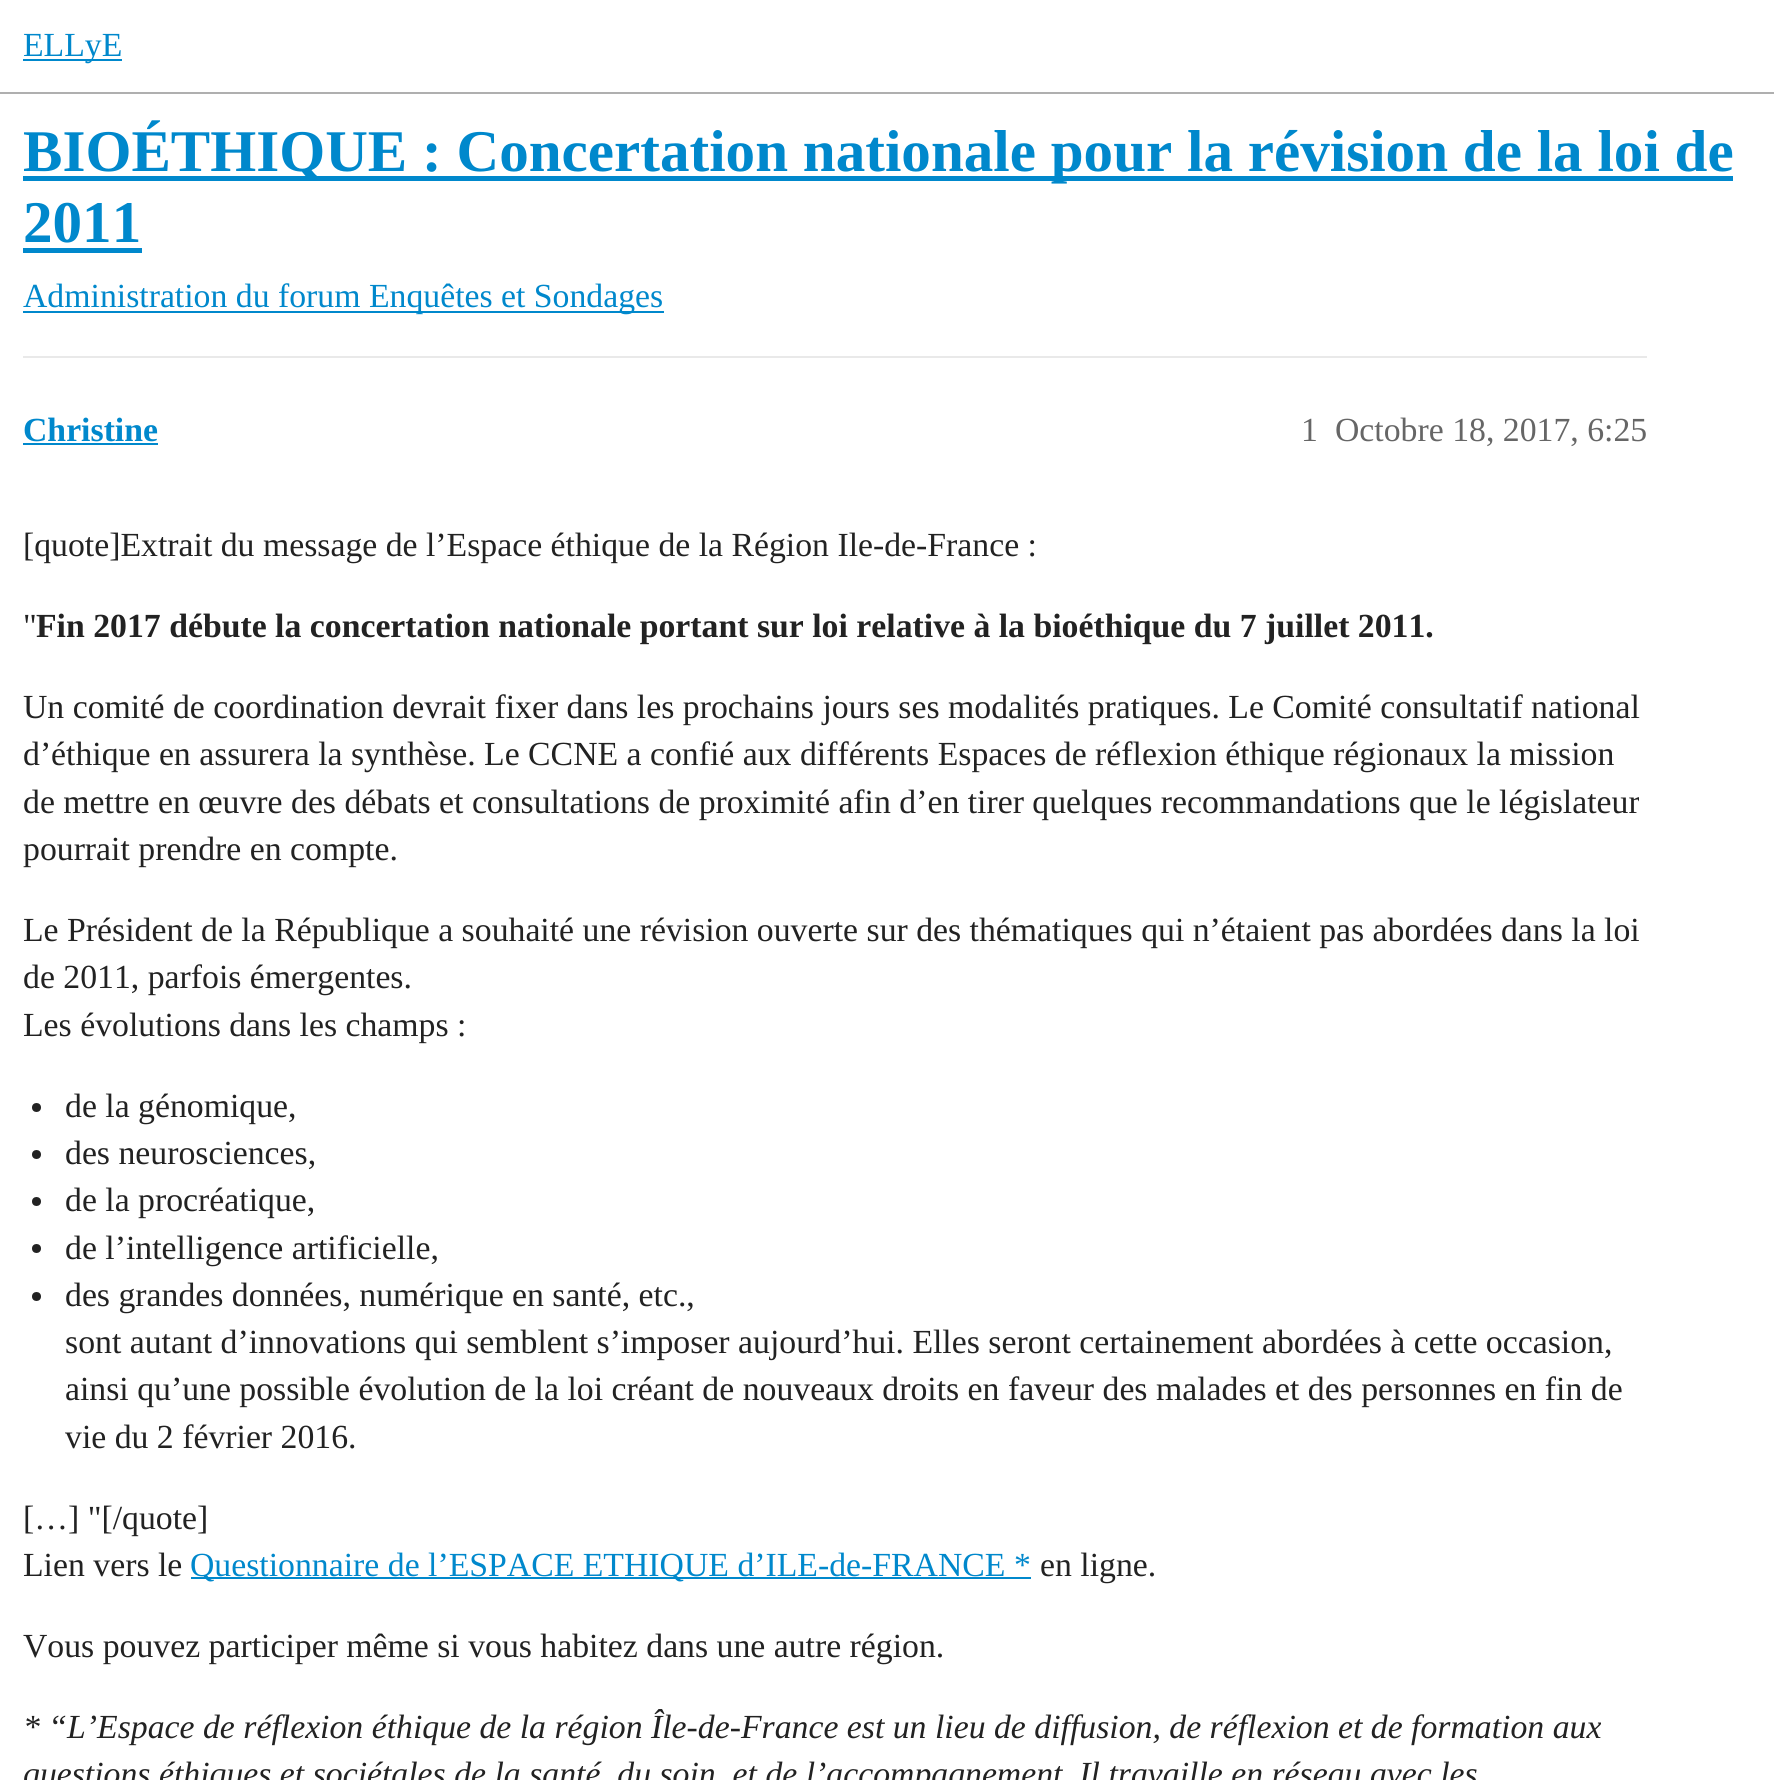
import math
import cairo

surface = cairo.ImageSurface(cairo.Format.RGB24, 1774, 1780)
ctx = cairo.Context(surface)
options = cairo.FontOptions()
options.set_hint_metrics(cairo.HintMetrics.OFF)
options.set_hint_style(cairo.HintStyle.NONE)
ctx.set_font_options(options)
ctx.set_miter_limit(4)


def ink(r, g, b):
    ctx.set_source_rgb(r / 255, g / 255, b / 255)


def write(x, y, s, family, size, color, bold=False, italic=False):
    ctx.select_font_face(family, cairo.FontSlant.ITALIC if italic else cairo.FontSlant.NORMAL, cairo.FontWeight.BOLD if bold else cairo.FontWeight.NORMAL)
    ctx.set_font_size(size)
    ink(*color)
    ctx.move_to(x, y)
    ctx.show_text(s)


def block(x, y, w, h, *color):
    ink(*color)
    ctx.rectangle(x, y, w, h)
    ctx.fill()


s1 = dict(family="Liberation Serif", size=33.75, color=(0, 136, 204))
s2 = dict(family="Liberation Serif", size=59.1, color=(0, 136, 204), bold=True)
s3 = dict(family="Liberation Serif", size=33.75, color=(0, 136, 204), bold=True)
s4 = dict(family="Liberation Serif", size=33.75, color=(102, 102, 102))
s5 = dict(family="Liberation Serif", size=33.75, color=(34, 34, 34))
s6 = dict(family="Liberation Serif", size=33.75, color=(34, 34, 34), bold=True)
s7 = dict(family="Liberation Serif", size=33.75, color=(34, 34, 34), italic=True)

ink(255, 255, 255)
ctx.paint()
block(0, 92, 1774, 2, 175, 175, 175)
block(23, 59, 99, 2, 0, 136, 204)
write(23, 56, "ELLyE", **s1)
block(23, 176, 1710, 5, 0, 136, 204)
write(23, 171, "BIOÉTHIQUE : Concertation nationale pour la révision de la loi de", **s2)
write(23, 242, "2011", **s2)
block(23, 248, 119, 5, 0, 136, 204)
block(23, 311, 641, 2, 0, 136, 204)
write(23, 307, "Administration du forum Enquêtes et Sondages", **s1)
block(23, 356, 1624, 2, 233, 233, 233)
write(23, 441, "Christine", **s3)
block(23, 443, 135, 2, 0, 136, 204)
write(1301, 441, "1", **s4)
write(1335, 441, "Octobre 18, 2017, 6:25", **s4)
write(23, 556, "[quote]Extrait du message de l’Espace éthique de la Région Ile-de-France :", **s5)
write(23, 637, "\"", **s5)
write(36, 637, "Fin 2017 débute la concertation nationale portant sur loi relative à la bioéthique du 7 juillet 2011.", **s6)
write(23, 718, "Un comité de coordination devrait fixer dans les prochains jours ses modalités pratiques. Le Comité consultatif national", **s5)
write(23, 765, "d’éthique en assurera la synthèse. Le CCNE a confié aux différents Espaces de réflexion éthique régionaux la mission", **s5)
write(23, 813, "de mettre en œuvre des débats et consultations de proximité afin d’en tirer quelques recommandations que le législateur", **s5)
write(23, 860, "pourrait prendre en compte.", **s5)
write(23, 941, "Le Président de la République a souhaité une révision ouverte sur des thématiques qui n’étaient pas abordées dans la loi", **s5)
write(23, 988, "de 2011, parfois émergentes.", **s5)
write(23, 1036, "Les évolutions dans les champs :", **s5)
ctx.new_path()
ctx.arc(36.5, 1107.5, 4.5, 0, 2 * math.pi)
ctx.fill()
write(65, 1117, "de la génomique,", **s5)
ctx.new_path()
ctx.arc(36.5, 1154.5, 4.5, 0, 2 * math.pi)
ctx.fill()
write(65, 1164, "des neurosciences,", **s5)
ctx.new_path()
ctx.arc(36.5, 1201.5, 4.5, 0, 2 * math.pi)
ctx.fill()
write(65, 1211, "de la procréatique,", **s5)
ctx.new_path()
ctx.arc(36.5, 1248.5, 4.5, 0, 2 * math.pi)
ctx.fill()
write(65, 1259, "de l’intelligence artificielle,", **s5)
ctx.new_path()
ctx.arc(36.5, 1296.5, 4.5, 0, 2 * math.pi)
ctx.fill()
write(65, 1306, "des grandes données, numérique en santé, etc.,", **s5)
write(65, 1353, "sont autant d’innovations qui semblent s’imposer aujourd’hui. Elles seront certainement abordées à cette occasion,", **s5)
write(65, 1400, "ainsi qu’une possible évolution de la loi créant de nouveaux droits en faveur des malades et des personnes en fin de", **s5)
write(65, 1448, "vie du 2 février 2016.", **s5)
write(23, 1529, "[…] \"[/quote]", **s5)
write(23, 1576, "Lien vers le", **s5)
block(191, 1577, 840, 2, 0, 136, 204)
write(190, 1576, "Questionnaire de l’ESPACE ETHIQUE d’ILE-de-FRANCE *", **s1)
write(1040, 1576, "en ligne.", **s5)
write(23, 1657, "Vous pouvez participer même si vous habitez dans une autre région.", **s5)
write(23, 1738, "* “L’Espace de réflexion éthique de la région Île-de-France est un lieu de diffusion, de réflexion et de formation aux", **s7)
write(23, 1785, "questions éthiques et sociétales de la santé, du soin, et de l’accompagnement. Il travaille en réseau avec les", **s7)
surface.write_to_png("screenshot.png")
